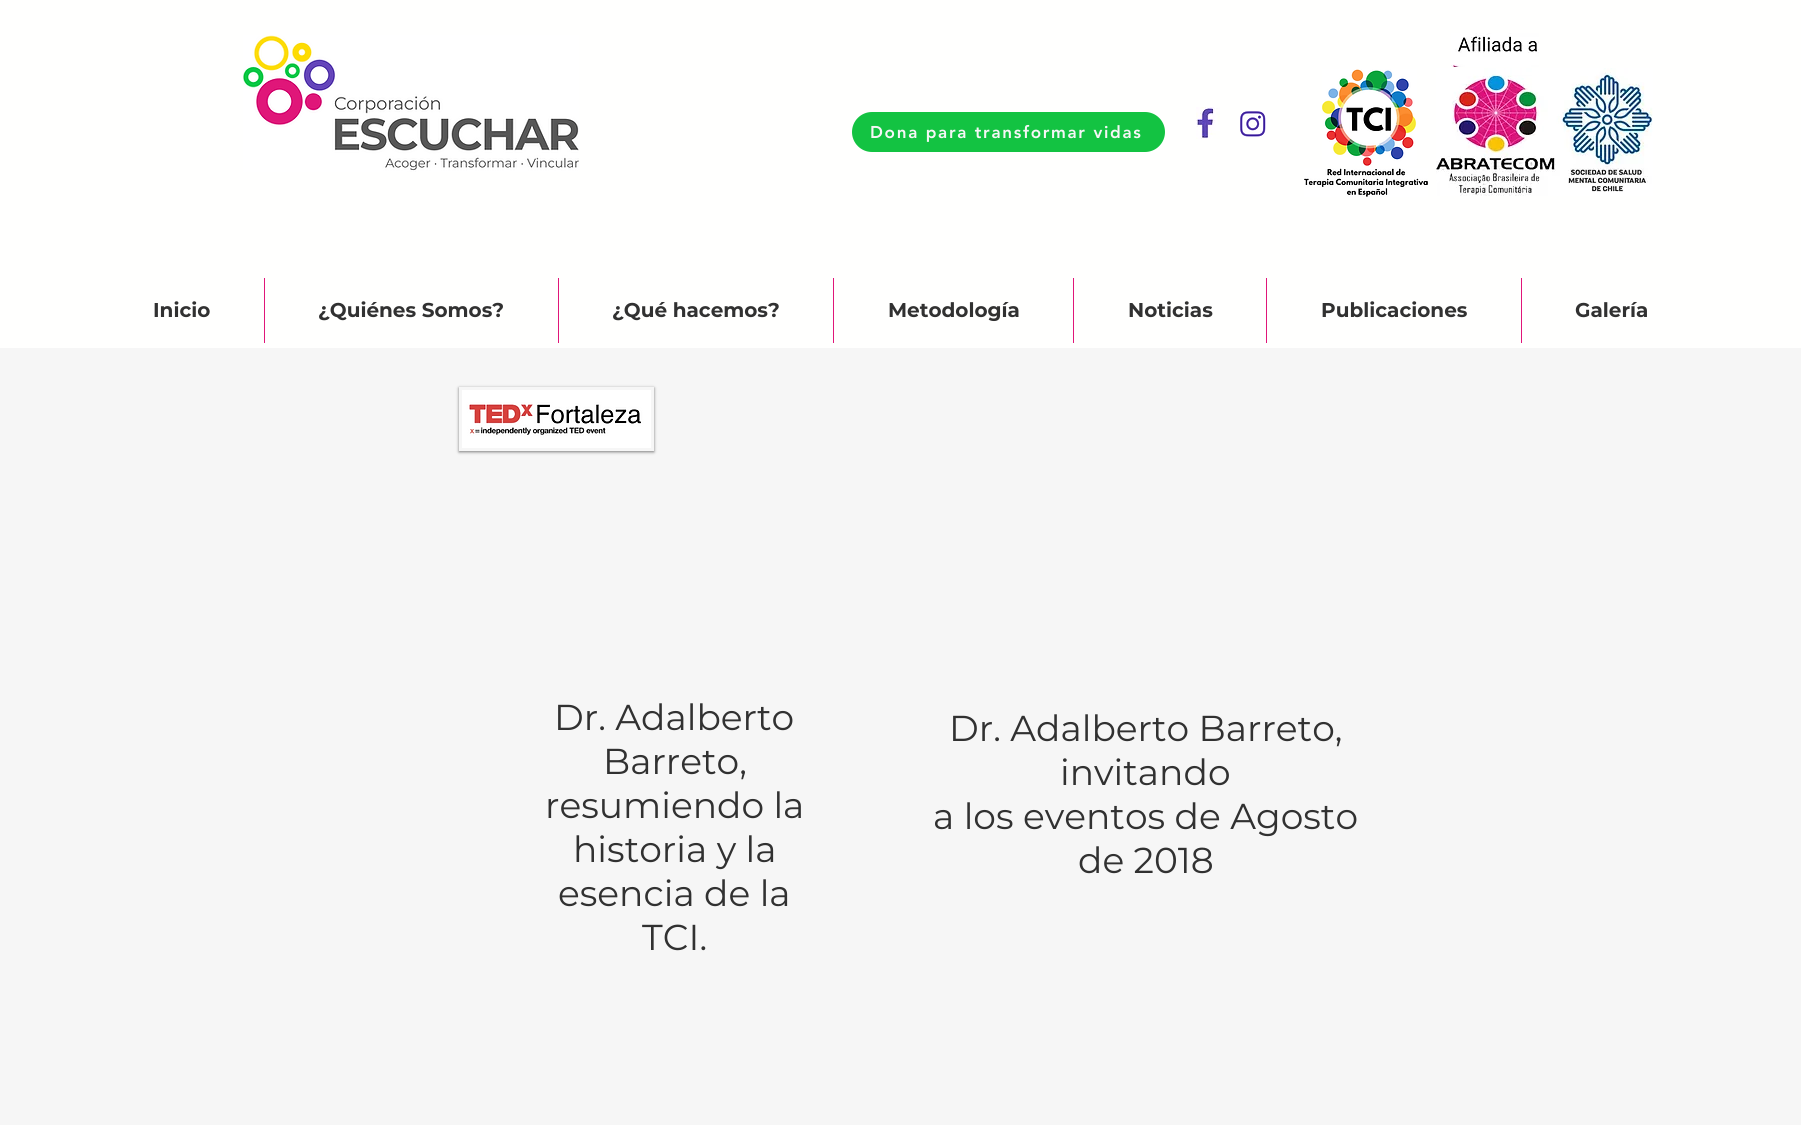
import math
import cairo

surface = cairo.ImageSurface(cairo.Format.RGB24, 1801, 1125)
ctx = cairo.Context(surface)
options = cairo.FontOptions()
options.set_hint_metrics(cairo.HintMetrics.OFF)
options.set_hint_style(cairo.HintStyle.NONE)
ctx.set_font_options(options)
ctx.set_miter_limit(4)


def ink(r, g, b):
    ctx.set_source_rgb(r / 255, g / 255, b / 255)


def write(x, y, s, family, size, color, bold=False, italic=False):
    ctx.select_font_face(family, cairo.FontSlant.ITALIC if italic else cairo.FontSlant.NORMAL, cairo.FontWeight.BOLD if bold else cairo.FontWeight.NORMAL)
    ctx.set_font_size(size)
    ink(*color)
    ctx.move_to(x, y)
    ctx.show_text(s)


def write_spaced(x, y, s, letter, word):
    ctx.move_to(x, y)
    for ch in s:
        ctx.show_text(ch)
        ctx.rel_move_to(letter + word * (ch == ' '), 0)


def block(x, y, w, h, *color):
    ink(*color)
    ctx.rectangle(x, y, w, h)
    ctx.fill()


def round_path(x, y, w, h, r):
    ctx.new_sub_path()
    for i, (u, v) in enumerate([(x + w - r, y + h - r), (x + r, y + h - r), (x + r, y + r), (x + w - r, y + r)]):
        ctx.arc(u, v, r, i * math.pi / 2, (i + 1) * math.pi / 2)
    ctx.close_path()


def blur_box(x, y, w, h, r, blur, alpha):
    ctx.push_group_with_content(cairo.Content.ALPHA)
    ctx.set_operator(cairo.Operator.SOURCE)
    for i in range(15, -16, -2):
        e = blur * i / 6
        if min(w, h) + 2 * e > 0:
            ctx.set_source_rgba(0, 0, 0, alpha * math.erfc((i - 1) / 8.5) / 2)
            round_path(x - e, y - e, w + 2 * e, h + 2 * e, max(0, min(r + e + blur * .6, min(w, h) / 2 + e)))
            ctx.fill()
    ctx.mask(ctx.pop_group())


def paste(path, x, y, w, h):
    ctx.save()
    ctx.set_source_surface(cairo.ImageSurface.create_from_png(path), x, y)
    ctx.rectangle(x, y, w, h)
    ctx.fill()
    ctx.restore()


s1 = dict(family="Montserrat", size=20, color=(49, 49, 49), bold=True)
s2 = dict(family="Montserrat", size=36, color=(49, 49, 49))

ink(246, 246, 246)
ctx.paint()
block(0, 0, 1801, 348, 255, 255, 254)
paste("pic1.png", 243, 35, 336, 137)
paste("pic2.png", 1451, 33, 88, 34)
ink(19, 195, 66)
round_path(852, 112, 313, 40, 20)
ctx.fill()
ctx.select_font_face("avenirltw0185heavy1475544 Black")
ctx.set_font_size(17)
ink(246, 246, 246)
write_spaced(870, 138, "Dona para transformar vidas", 1.7, 0)
paste("pic3.png", 1196, 107, 24, 32)
paste("pic4.png", 1240, 111, 26, 26)
paste("pic5.png", 1322, 69, 95, 97)
paste("pic6.png", 1436, 68, 217, 128)
paste("pic7.png", 1304, 168, 124, 29)
write(153, 317, "Inicio", **s1)
block(264, 278, 1, 65, 224, 22, 121)
write(318, 317, "¿Quiénes Somos?", **s1)
block(558, 278, 1, 65, 224, 22, 121)
write(612, 317, "¿Qué hacemos?", **s1)
block(833, 278, 1, 65, 224, 22, 121)
write(888, 317, "Metodología", **s1)
block(1073, 278, 1, 65, 224, 22, 121)
write(1128, 317, "Noticias", **s1)
block(1266, 278, 1, 65, 224, 22, 121)
write(1321, 317, "Publicaciones", **s1)
block(1521, 278, 1, 65, 224, 22, 121)
write(1575, 317, "Galería", **s1)
ctx.save()
ctx.set_fill_rule(cairo.FillRule.EVEN_ODD)
ctx.new_path()
ctx.move_to(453, 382)
ctx.line_to(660, 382)
ctx.line_to(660, 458)
ctx.line_to(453, 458)
ctx.close_path()
ctx.move_to(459, 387)
ctx.line_to(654, 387)
ctx.line_to(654, 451)
ctx.line_to(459, 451)
ctx.close_path()
ctx.clip()
ink(0, 0, 0)
blur_box(459, 388, 195, 64, 0, 1.5, 0.5)
ctx.restore()
paste("pic8.png", 462, 390, 189, 58)
write(554, 730, "Dr. Adalberto", **s2)
write(603, 774, "Barreto,", **s2)
write(545, 818, "resumiendo la", **s2)
write(573, 862, "historia y la", **s2)
write(558, 906, "esencia de la", **s2)
write(642, 950, "TCI.", **s2)
write(949, 741, "Dr. Adalberto Barreto,", **s2)
write(1060, 785, "invitando", **s2)
write(933, 829, "a los eventos de Agosto", **s2)
write(1078, 873, "de 2018", **s2)
surface.write_to_png("screenshot.png")
